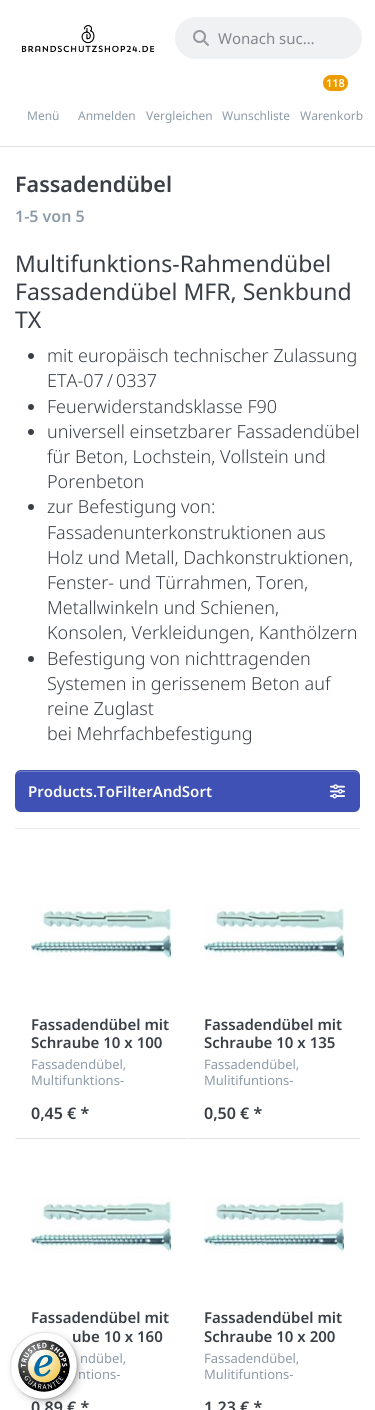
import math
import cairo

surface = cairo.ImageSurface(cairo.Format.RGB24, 375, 1410)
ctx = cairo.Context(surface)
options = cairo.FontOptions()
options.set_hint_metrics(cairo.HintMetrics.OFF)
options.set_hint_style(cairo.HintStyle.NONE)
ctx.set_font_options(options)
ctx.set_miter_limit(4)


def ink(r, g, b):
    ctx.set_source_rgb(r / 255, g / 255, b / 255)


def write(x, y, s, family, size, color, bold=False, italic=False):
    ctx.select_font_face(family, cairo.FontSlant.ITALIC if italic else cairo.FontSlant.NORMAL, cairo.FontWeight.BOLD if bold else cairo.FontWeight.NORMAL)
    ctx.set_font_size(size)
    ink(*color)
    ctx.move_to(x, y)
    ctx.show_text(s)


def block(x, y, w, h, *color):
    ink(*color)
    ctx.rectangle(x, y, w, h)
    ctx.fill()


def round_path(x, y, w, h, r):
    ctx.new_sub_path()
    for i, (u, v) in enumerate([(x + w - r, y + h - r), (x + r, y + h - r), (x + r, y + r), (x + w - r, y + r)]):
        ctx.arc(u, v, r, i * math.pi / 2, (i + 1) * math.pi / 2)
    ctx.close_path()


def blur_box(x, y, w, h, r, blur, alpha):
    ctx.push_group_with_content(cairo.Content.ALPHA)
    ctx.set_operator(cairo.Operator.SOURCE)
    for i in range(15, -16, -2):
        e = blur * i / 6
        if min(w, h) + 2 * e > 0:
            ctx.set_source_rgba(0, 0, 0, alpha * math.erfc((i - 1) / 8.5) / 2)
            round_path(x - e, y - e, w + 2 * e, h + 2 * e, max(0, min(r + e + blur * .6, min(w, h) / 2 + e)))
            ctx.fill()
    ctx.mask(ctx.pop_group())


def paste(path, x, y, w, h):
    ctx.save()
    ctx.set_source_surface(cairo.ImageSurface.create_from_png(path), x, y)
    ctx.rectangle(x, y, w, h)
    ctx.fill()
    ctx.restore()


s1 = dict(family="Noto Sans", size=15, color=(130, 134, 139))
s2 = dict(family="Noto Sans", size=12, color=(141, 155, 169))
s3 = dict(family="Noto Sans SemiBold", size=11, color=(255, 255, 255))
s4 = dict(family="Noto Sans SemiBold", size=21.5, color=(57, 63, 70))
s5 = dict(family="Noto Sans SemiBold", size=16, color=(141, 155, 169))
s6 = dict(family="Noto Sans", size=23, color=(57, 63, 70))
s7 = dict(family="Noto Sans Light", size=18, color=(57, 63, 70))
s8 = dict(family="Noto Sans SemiBold", size=15, color=(255, 255, 255))
s9 = dict(family="Noto Sans SemiBold", size=15, color=(57, 63, 70))
s10 = dict(family="Noto Sans", size=13, color=(141, 155, 169))
s11 = dict(family="Noto Sans SemiBold", size=16, color=(57, 63, 70))

ink(255, 255, 255)
ctx.paint()
block(0, 146, 375, 1, 224, 224, 224)
paste("pic1.png", 21, 25, 134, 28)
ink(239, 241, 243)
round_path(175.5, 17.5, 186, 41, 20.5)
ctx.fill_preserve()
ctx.set_line_width(1)
ctx.stroke()
paste("pic2.png", 193, 30, 16, 16)
write(218, 44, "Wonach suc…", **s1)
write(27, 120, "Menü", **s2)
write(78, 120, "Anmelden", **s2)
write(146, 120, "Vergleichen", **s2)
write(222, 120, "Wunschliste", **s2)
ink(238, 155, 0)
round_path(322, 74, 27, 18, 9)
ctx.fill()
round_path(322, 74, 27, 18, 9)
ink(255, 255, 255)
ctx.set_line_width(2)
ctx.stroke()
write(326, 87, "118", **s3)
write(300, 120, "Warenkorb", **s2)
write(15, 192, "Fassadendübel", **s4)
write(15, 222, "1-5 von 5", **s5)
write(15, 272, "Multifunktions-Rahmendübel", **s6)
write(15, 300, "Fassadendübel MFR, Senkbund", **s6)
write(15, 328, "TX", **s6)
ctx.new_path()
ctx.arc(31, 356, 3, 0, 2 * math.pi)
ctx.fill()
write(47, 362, "mit europäisch technischer Zulassung", **s7)
write(47, 387, "ETA-07 / 0337", **s7)
ctx.new_path()
ctx.arc(31, 407, 3, 0, 2 * math.pi)
ctx.fill()
write(47, 413, "Feuerwiderstandsklasse F90", **s7)
ctx.new_path()
ctx.arc(31, 432, 3, 0, 2 * math.pi)
ctx.fill()
write(47, 438, "universell einsetzbarer Fassadendübel", **s7)
write(47, 463, "für Beton, Lochstein, Vollstein und", **s7)
write(47, 488, "Porenbeton", **s7)
ctx.new_path()
ctx.arc(31, 507, 3, 0, 2 * math.pi)
ctx.fill()
write(47, 513, "zur Befestigung von:", **s7)
write(47, 539, "Fassadenunterkonstruktionen aus", **s7)
write(47, 564, "Holz und Metall, Dachkonstruktionen,", **s7)
write(47, 589, "Fenster- und Türrahmen, Toren,", **s7)
write(47, 614, "Metallwinkeln und Schienen,", **s7)
write(47, 639, "Konsolen, Verkleidungen, Kanthölzern", **s7)
ctx.new_path()
ctx.arc(31, 659, 3, 0, 2 * math.pi)
ctx.fill()
write(47, 665, "Befestigung von nichttragenden", **s7)
write(47, 690, "Systemen in gerissenem Beton auf", **s7)
write(47, 715, "reine Zuglast", **s7)
write(47, 740, "bei Mehrfachbefestigung", **s7)
block(15, 828, 345, 1, 233, 236, 239)
ink(246, 246, 246)
ctx.new_path()
ctx.move_to(15, 806)
ctx.curve_to(15, 810, 17, 813, 21, 813)
ctx.line_to(354, 813)
ctx.curve_to(358, 813, 360, 810, 360, 806)
ctx.curve_to(360, 809, 357, 812, 354, 812)
ctx.line_to(21, 812)
ctx.curve_to(18, 812, 15, 809, 15, 806)
ctx.close_path()
ctx.fill()
ink(63, 81, 181)
round_path(15, 770, 345, 42, 6)
ctx.fill()
ink(111, 125, 200)
ctx.new_path()
ctx.move_to(21, 772)
ctx.line_to(354, 772)
ctx.curve_to(357, 772, 359, 774, 359, 777)
ctx.curve_to(359, 774, 357, 771, 354, 771)
ctx.line_to(21, 771)
ctx.curve_to(18, 771, 16, 774, 16, 777)
ctx.curve_to(16, 774, 18, 772, 21, 772)
ctx.close_path()
ctx.fill()
round_path(15.5, 770.5, 344, 41, 5.5)
ctx.set_source_rgba(0.349, 0.38, 0.404, 0.15)
ctx.set_line_width(1)
ctx.stroke()
write(28, 797, "Products.ToFilterAndSort", **s8)
paste("pic3.png", 330, 784, 15, 15)
ink(222, 226, 230)
ctx.new_path()
ctx.move_to(188, 1139)
ctx.line_to(15, 1139)
ctx.line_to(16, 1138)
ctx.line_to(187, 1138)
ctx.close_path()
ctx.fill()
paste("pic4.png", 31, 903, 140, 57)
write(31, 1030, "Fassadendübel mit", **s9)
write(31, 1048, "Schraube 10 x 100", **s9)
write(31, 1069, "Fassadendübel,", **s10)
write(31, 1085, "Multifunktions-", **s10)
write(31, 1119, "0,45 € *", **s11)
ink(222, 226, 230)
ctx.new_path()
ctx.move_to(360, 1139)
ctx.line_to(188, 1139)
ctx.line_to(189, 1138)
ctx.line_to(359, 1138)
ctx.close_path()
ctx.fill()
paste("pic5.png", 204, 903, 140, 57)
write(204, 1030, "Fassadendübel mit", **s9)
write(204, 1048, "Schraube 10 x 135", **s9)
write(204, 1069, "Fassadendübel,", **s10)
write(204, 1085, "Mulitifuntions-", **s10)
write(204, 1119, "0,50 € *", **s11)
paste("pic4.png", 31, 1196, 140, 57)
write(31, 1323, "Fassadendübel mit", **s9)
write(72, 1342, "ube 10 x 160", **s9)
write(80, 1363, "ndübel,", **s10)
write(78, 1379, "ntions-", **s10)
write(31, 1413, "0,89 € *", **s11)
paste("pic5.png", 204, 1196, 140, 57)
write(204, 1323, "Fassadendübel mit", **s9)
write(204, 1342, "Schraube 10 x 200", **s9)
write(204, 1363, "Fassadendübel,", **s10)
write(204, 1379, "Mulitifuntions-", **s10)
write(204, 1413, "1,23 € *", **s11)
ink(0, 0, 0)
blur_box(13, 1335, 68, 68, 34, 4, 0.15)
blur_box(11, 1333, 68, 68, 34, 1, 0.15)
ink(255, 255, 255)
ctx.arc(44, 1366, 34, 0, 2 * math.pi)
ctx.fill()
ctx.set_source_rgba(0, 0, 0, 0.1)
ctx.new_path()
ctx.move_to(45, 1333)
ctx.curve_to(53, 1333, 61, 1336, 67, 1341)
ctx.curve_to(53, 1329, 33, 1329, 20, 1342)
ctx.curve_to(7, 1355, 7, 1375, 19, 1389)
ctx.curve_to(1, 1367, 16, 1333, 45, 1333)
ctx.close_path()
ctx.fill()
ctx.set_source_rgba(0, 0, 0, 0.2)
ctx.new_path()
ctx.move_to(21, 1391)
ctx.curve_to(35, 1403, 55, 1403, 68, 1390)
ctx.curve_to(81, 1377, 81, 1357, 69, 1343)
ctx.curve_to(80, 1357, 79, 1377, 67, 1389)
ctx.curve_to(55, 1401, 35, 1402, 21, 1391)
ctx.close_path()
ctx.fill()
ctx.set_source_rgba(0.196, 0.196, 0.196, 0.2)
ctx.new_path()
ctx.move_to(17, 1387)
ctx.curve_to(30, 1403, 54, 1404, 68, 1390)
ctx.curve_to(82, 1376, 81, 1352, 65, 1339)
ctx.curve_to(80, 1352, 81, 1375, 67, 1389)
ctx.curve_to(53, 1403, 30, 1402, 17, 1387)
ctx.close_path()
ctx.fill()
ctx.set_source_rgba(1, 1, 1, 0.3)
ctx.set_fill_rule(cairo.FillRule.EVEN_ODD)
ctx.new_path()
ctx.move_to(44, 1332)
ctx.curve_to(63, 1332, 78, 1347, 78, 1366)
ctx.curve_to(78, 1347, 62, 1332, 44, 1332)
ctx.close_path()
ctx.move_to(44, 1400)
ctx.curve_to(63, 1400, 78, 1385, 78, 1366)
ctx.curve_to(78, 1384, 62, 1400, 44, 1400)
ctx.close_path()
ctx.fill()
paste("pic6.png", 18, 1340, 52, 52)
surface.write_to_png("screenshot.png")
